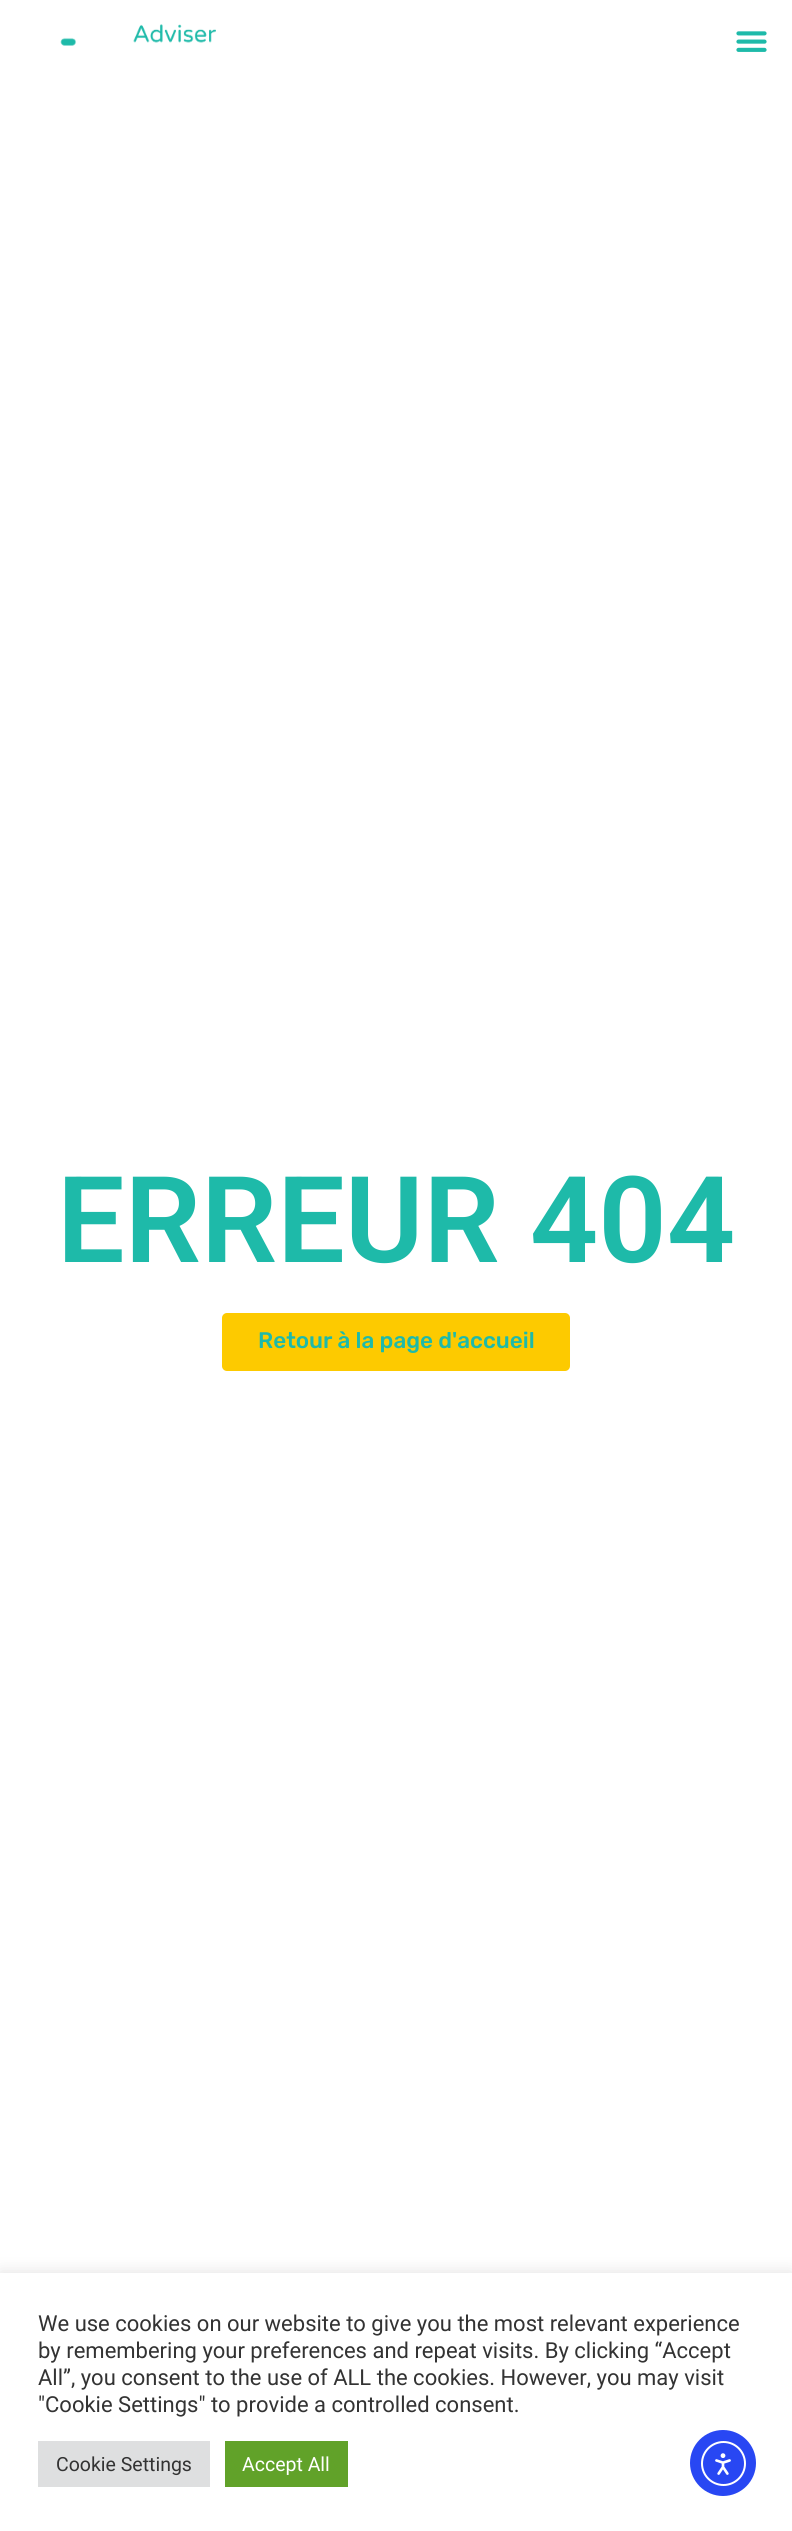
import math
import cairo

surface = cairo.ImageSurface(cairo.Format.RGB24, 792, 2531)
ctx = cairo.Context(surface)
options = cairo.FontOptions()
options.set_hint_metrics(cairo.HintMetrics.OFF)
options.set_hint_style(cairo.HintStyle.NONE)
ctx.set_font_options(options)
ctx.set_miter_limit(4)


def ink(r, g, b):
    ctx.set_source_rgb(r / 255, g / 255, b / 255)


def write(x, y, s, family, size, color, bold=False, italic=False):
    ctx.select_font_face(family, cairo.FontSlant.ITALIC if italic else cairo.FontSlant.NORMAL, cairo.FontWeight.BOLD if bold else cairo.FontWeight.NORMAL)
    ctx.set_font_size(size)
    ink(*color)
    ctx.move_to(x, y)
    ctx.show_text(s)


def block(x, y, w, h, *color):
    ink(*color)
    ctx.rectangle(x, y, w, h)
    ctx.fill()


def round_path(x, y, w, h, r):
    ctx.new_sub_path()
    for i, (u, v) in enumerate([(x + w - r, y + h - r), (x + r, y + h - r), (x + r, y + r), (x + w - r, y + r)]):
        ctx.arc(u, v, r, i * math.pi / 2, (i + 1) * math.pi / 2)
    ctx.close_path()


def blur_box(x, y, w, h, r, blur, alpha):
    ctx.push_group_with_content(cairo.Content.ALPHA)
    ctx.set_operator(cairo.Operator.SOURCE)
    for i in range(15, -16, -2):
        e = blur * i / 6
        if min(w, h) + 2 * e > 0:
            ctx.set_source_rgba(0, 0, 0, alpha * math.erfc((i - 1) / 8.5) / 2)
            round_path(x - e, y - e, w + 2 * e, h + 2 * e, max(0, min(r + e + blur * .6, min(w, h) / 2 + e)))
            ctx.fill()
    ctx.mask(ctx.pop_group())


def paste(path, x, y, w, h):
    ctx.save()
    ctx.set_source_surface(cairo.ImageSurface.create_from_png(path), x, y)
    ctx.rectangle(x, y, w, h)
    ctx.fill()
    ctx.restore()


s1 = dict(family="Roboto SemiBold", size=120, color=(30, 186, 169))
s2 = dict(family="Rubik Medium", size=22.5, color=(30, 186, 169))
s3 = dict(family="Roboto", size=22, color=(51, 51, 51))
s4 = dict(family="Roboto", size=19.5, color=(51, 51, 51))
s5 = dict(family="Roboto", size=19.5, color=(255, 255, 255))

ink(255, 255, 255)
ctx.paint()
paste("pic1.png", 60, 24, 156, 22)
paste("pic2.png", 736, 31, 31, 21)
write(57, 1262, "ERREUR 404", **s1)
ink(253, 202, 0)
round_path(222, 1313, 348, 58, 5)
ctx.fill()
write(258, 1348, "Retour à la page d'accueil", **s2)
ink(172, 171, 171)
blur_box(0, 2271, 792, 260, 0, 7.5, 0.3)
block(0, 2273, 792, 258, 255, 255, 255)
write(38, 2331, "We use cookies on our website to give you the most relevant experience", **s3)
write(38, 2358, "by remembering your preferences and repeat visits. By clicking “Accept", **s3)
write(38, 2385, "All”, you consent to the use of ALL the cookies. However, you may visit", **s3)
write(38, 2412, "\"Cookie Settings\" to provide a controlled consent.", **s3)
block(38, 2441, 172, 46, 222, 223, 224)
write(56, 2471, "Cookie Settings", **s4)
block(225, 2441, 123, 46, 97, 162, 41)
write(242, 2471, "Accept All", **s5)
ink(40, 71, 243)
ctx.new_path()
ctx.arc(723, 2463, 33, 0, 2 * math.pi)
ctx.fill()
ctx.arc(723.5, 2463.5, 21.5, 0, 2 * math.pi)
ink(255, 255, 255)
ctx.stroke()
paste("pic3.png", 715, 2453, 16, 22)
surface.write_to_png("screenshot.png")
